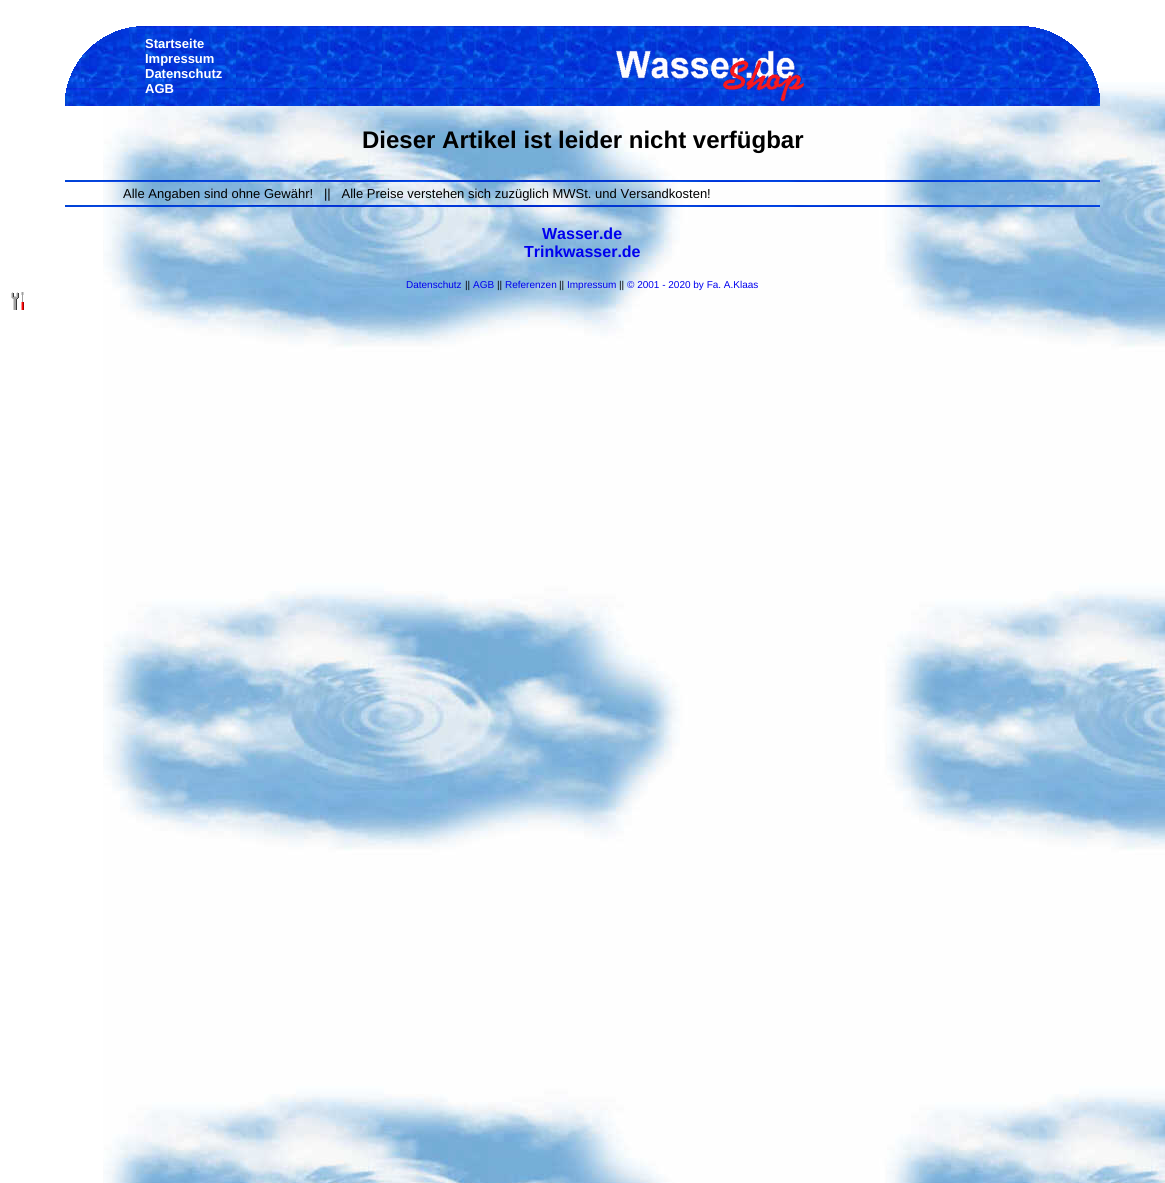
import math
import cairo

surface = cairo.ImageSurface(cairo.Format.RGB24, 1165, 1183)
ctx = cairo.Context(surface)
options = cairo.FontOptions()
options.set_hint_metrics(cairo.HintMetrics.OFF)
options.set_hint_style(cairo.HintStyle.NONE)
ctx.set_font_options(options)
ctx.set_miter_limit(4)


def ink(r, g, b):
    ctx.set_source_rgb(r / 255, g / 255, b / 255)


def write(x, y, s, family, size, color, bold=False, italic=False):
    ctx.select_font_face(family, cairo.FontSlant.ITALIC if italic else cairo.FontSlant.NORMAL, cairo.FontWeight.BOLD if bold else cairo.FontWeight.NORMAL)
    ctx.set_font_size(size)
    ink(*color)
    ctx.move_to(x, y)
    ctx.show_text(s)


def paste(path, x, y, w, h):
    ctx.save()
    ctx.set_source_surface(cairo.ImageSurface.create_from_png(path), x, y)
    ctx.rectangle(x, y, w, h)
    ctx.fill()
    ctx.restore()


s1 = dict(family="Liberation Sans", size=13, color=(255, 255, 255), bold=True)
s2 = dict(family="Liberation Sans", size=24, color=(0, 0, 0), bold=True)
s3 = dict(family="Liberation Sans", size=13, color=(0, 0, 0))
s4 = dict(family="Liberation Sans", size=16, color=(0, 0, 238), bold=True)
s5 = dict(family="Liberation Sans", size=10, color=(0, 0, 238))
s6 = dict(family="Liberation Sans", size=10, color=(0, 0, 0))

ink(255, 255, 255)
ctx.paint()
paste("pic1.png", 103, 82, 1062, 1101)
paste("pic2.png", 65, 26, 80, 80)
paste("pic3.png", 65, 26, 71, 67)
paste("pic4.png", 145, 26, 237, 80)
write(145, 48, "Startseite", **s1)
write(145, 63, "Impressum", **s1)
write(145, 78, "Datenschutz", **s1)
write(145, 93, "AGB", **s1)
paste("pic5.png", 382, 26, 638, 80)
paste("pic6.png", 616, 50, 188, 52)
paste("pic2.png", 1020, 26, 80, 80)
paste("pic7.png", 1029, 26, 71, 67)
write(362, 148, "Dieser Artikel ist leider nicht verfügbar", **s2)
paste("pic8.png", 65, 180, 1035, 2)
write(123, 198, "Alle Angaben sind ohne Gewähr!   ||   Alle Preise verstehen sich zuzüglich MWSt. und Versandkosten!", **s3)
paste("pic8.png", 65, 205, 1035, 2)
write(542, 239, "Wasser.de", **s4)
write(524, 257, "Trinkwasser.de", **s4)
write(406, 288, "Datenschutz", **s5)
write(465, 288, "||", **s6)
write(473, 288, "AGB", **s5)
write(497, 288, "||", **s6)
write(505, 288, "Referenzen", **s5)
write(559, 288, "||", **s6)
write(567, 288, "Impressum", **s5)
write(619, 288, "||", **s6)
write(627, 288, "© 2001 - 2020 by Fa. A.Klaas", **s5)
paste("pic9.png", 11, 292, 13, 18)
surface.write_to_png("screenshot.png")
